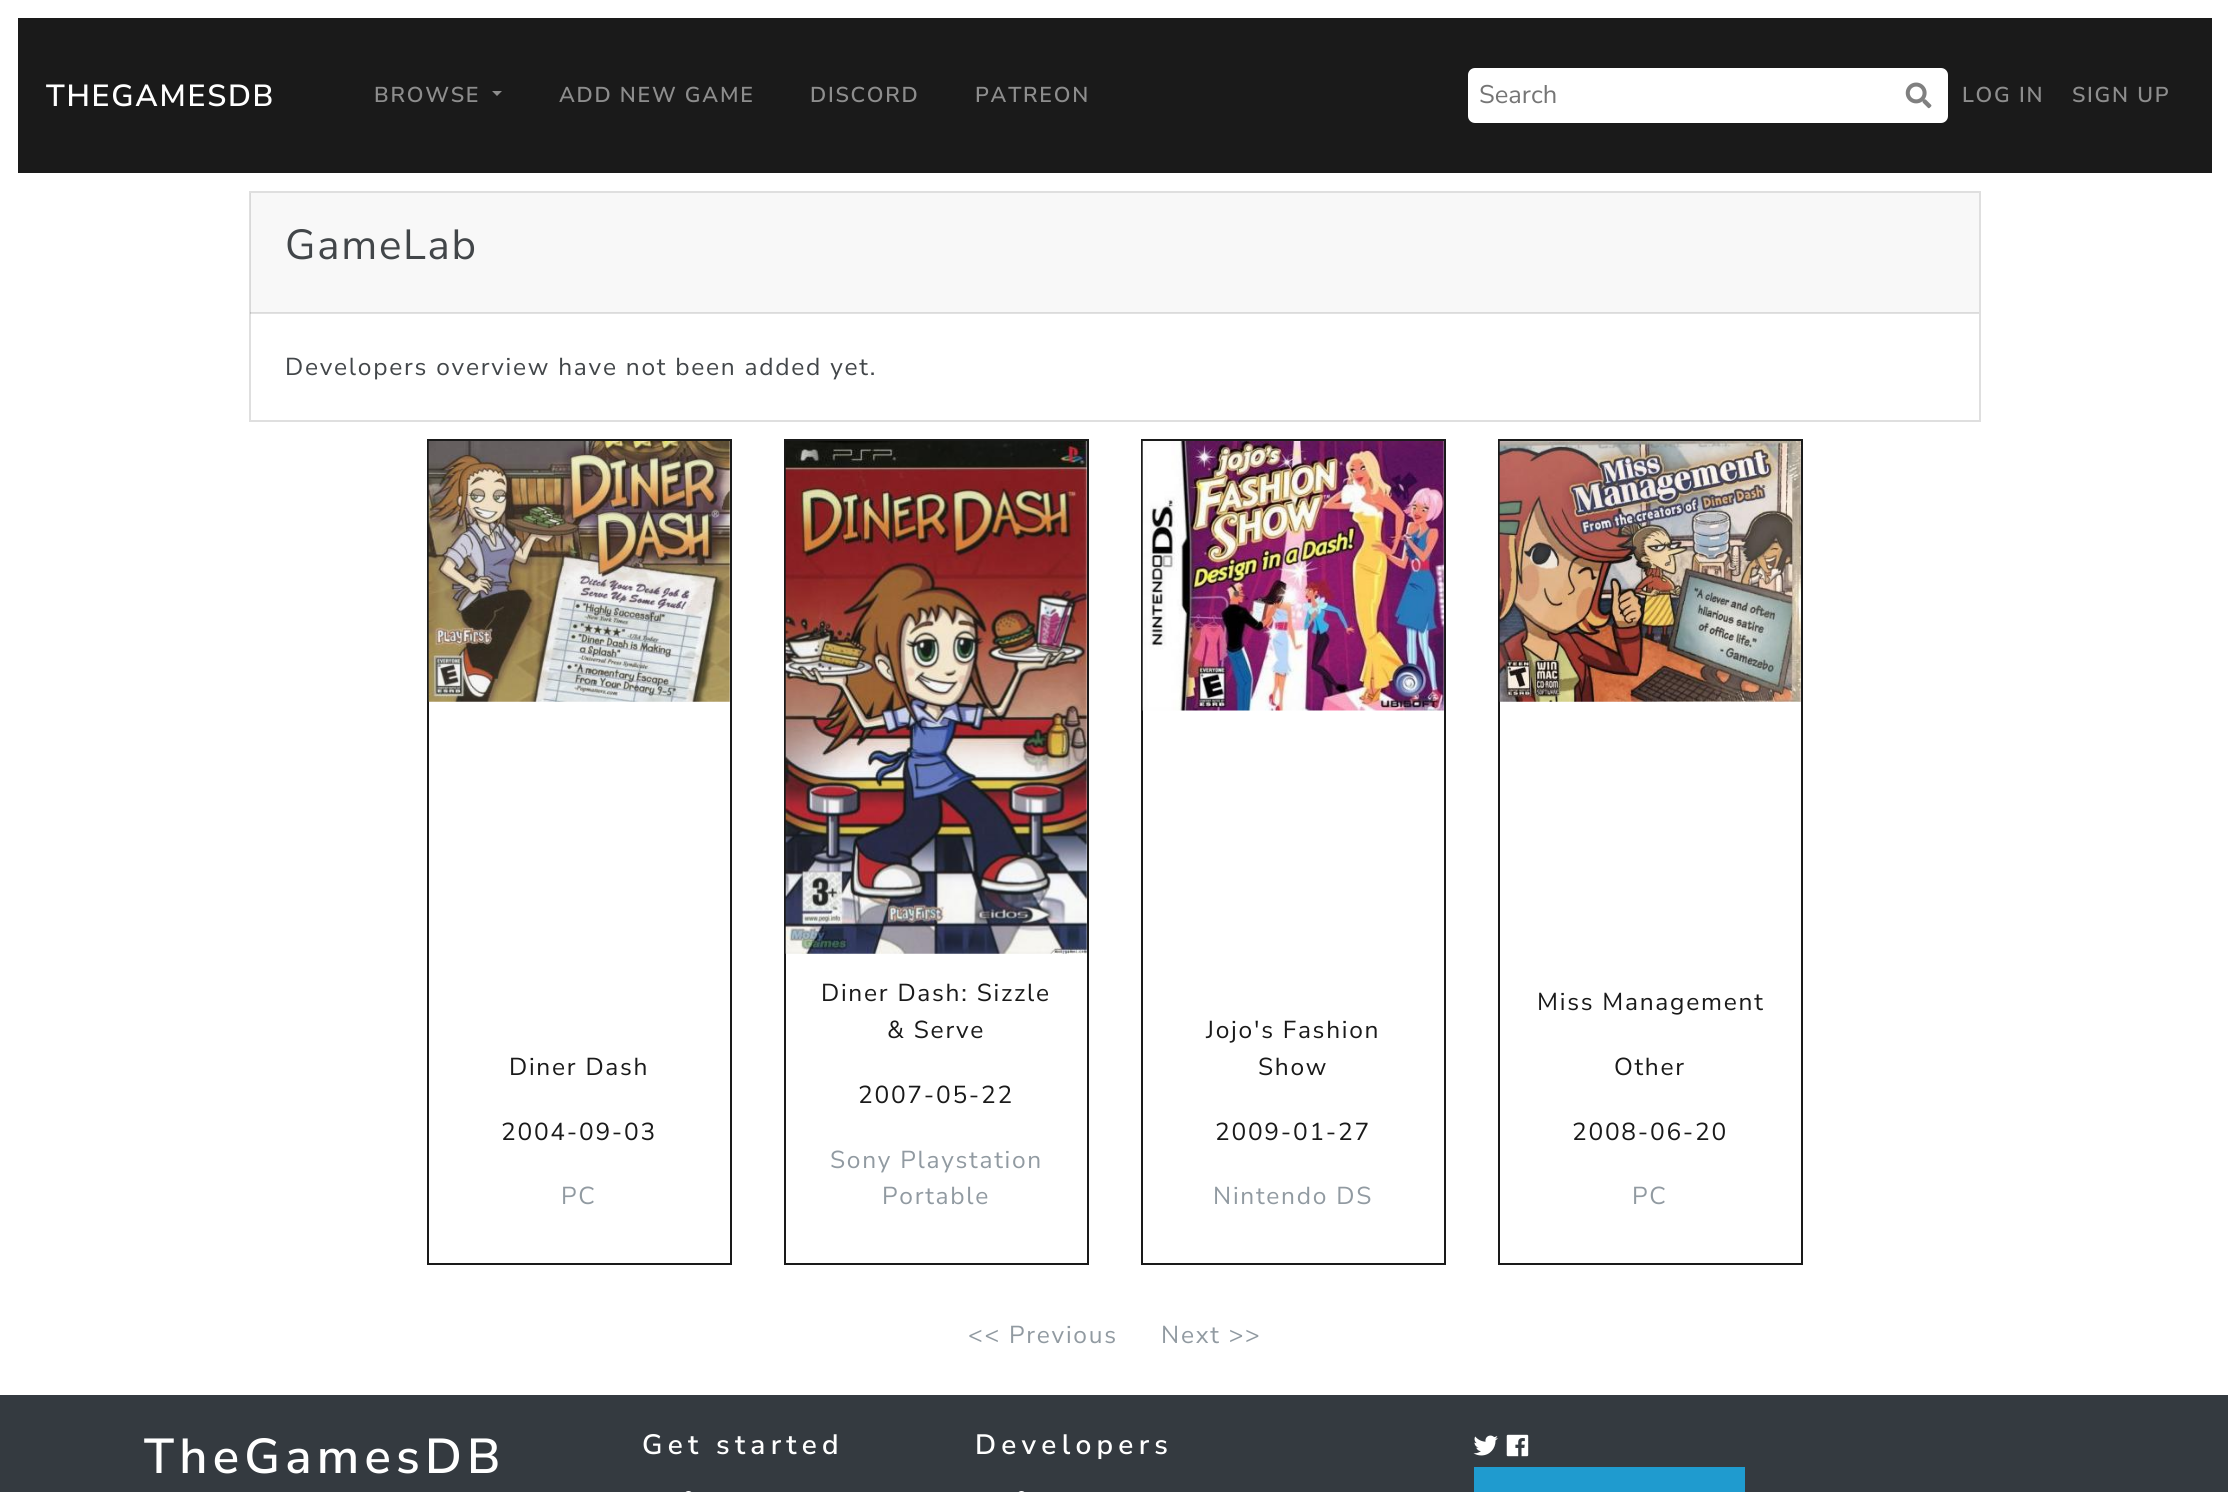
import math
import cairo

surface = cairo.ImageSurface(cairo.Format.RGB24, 2228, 1492)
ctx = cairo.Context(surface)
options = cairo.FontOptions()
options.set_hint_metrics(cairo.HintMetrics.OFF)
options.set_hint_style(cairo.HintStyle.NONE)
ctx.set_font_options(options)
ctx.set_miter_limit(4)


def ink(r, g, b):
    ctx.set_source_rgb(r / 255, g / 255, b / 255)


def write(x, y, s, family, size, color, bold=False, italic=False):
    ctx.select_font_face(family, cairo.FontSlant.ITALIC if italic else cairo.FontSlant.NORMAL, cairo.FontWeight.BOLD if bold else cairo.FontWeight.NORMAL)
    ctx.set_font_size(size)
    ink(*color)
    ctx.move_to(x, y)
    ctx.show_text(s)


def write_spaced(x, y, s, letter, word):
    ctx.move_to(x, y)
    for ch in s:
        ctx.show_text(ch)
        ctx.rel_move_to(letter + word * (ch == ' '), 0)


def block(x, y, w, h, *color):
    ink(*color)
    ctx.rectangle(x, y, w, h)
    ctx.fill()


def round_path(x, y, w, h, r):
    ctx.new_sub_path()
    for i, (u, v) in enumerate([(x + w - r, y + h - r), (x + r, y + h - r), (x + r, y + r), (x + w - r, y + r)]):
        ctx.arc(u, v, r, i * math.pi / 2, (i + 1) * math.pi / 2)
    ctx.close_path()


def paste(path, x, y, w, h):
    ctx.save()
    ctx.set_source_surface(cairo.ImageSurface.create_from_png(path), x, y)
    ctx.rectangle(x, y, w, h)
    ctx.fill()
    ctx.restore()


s1 = dict(family="Nunito Sans", size=25.5, color=(117, 117, 117))

ink(255, 255, 255)
ctx.paint()
block(18, 18, 2194, 155, 26, 26, 26)
ctx.select_font_face("Nunito Sans SemiBold")
ctx.set_font_size(30.5)
ink(255, 255, 255)
write_spaced(46, 106, "THEGAMESDB", 1.75, 0)
ctx.set_font_size(21.5)
ink(141, 141, 141)
write_spaced(374, 102, "BROWSE", 1.75, 0)
ctx.new_path()
ctx.move_to(492, 91)
ctx.line_to(502, 91)
ctx.line_to(497, 96)
ctx.close_path()
ctx.fill()
write_spaced(559, 102, "ADD NEW GAME", 1.75, 0)
write_spaced(810, 102, "DISCORD", 1.75, 0)
write_spaced(975, 102, "PATREON", 1.75, 0)
ink(255, 255, 255)
round_path(1468, 68, 480, 55, 7)
ctx.fill()
write(1479, 103, "Search", **s1)
paste("pic1.png", 1905, 82, 27, 27)
ctx.select_font_face("Nunito Sans SemiBold")
ctx.set_font_size(21.5)
ink(141, 141, 141)
write_spaced(1962, 102, "LOG IN", 1.75, 0)
write_spaced(2072, 102, "SIGN UP", 1.75, 0)
ctx.rectangle(250, 192, 1730, 229)
ink(223, 223, 223)
ctx.stroke()
ctx.set_source_rgba(0, 0, 0, 0.03)
ctx.rectangle(250, 193, 1729, 120)
ctx.fill()
ctx.set_source_rgba(0, 0, 0, 0.12)
ctx.rectangle(250, 312, 1729, 2)
ctx.fill()
ctx.select_font_face("Nunito Sans")
ctx.set_font_size(42)
ink(66, 70, 73)
write_spaced(285, 259, "GameLab", 1.75, 0)
ctx.set_font_size(24.5)
write_spaced(285, 375, "Developers overview have not been added yet.", 1.75, 0)
ctx.rectangle(428, 440, 303, 824)
ink(26, 26, 26)
ctx.stroke()
paste("pic2.png", 428, 441, 302, 261)
write_spaced(509, 1075, "Diner Dash", 1.75, 0)
write_spaced(501, 1140, "2004-09-03", 1.75, 0)
ink(145, 154, 161)
write_spaced(561, 1204, "PC", 1.75, 0)
ctx.rectangle(785, 440, 303, 824)
ink(26, 26, 26)
ctx.stroke()
paste("pic3.png", 785, 441, 302, 513)
write_spaced(821, 1001, "Diner Dash: Sizzle", 1.75, 0)
write_spaced(887, 1038, "& Serve", 1.75, 0)
write_spaced(858, 1103, "2007-05-22", 1.75, 0)
ink(145, 154, 161)
write_spaced(830, 1168, "Sony Playstation", 1.75, 0)
write_spaced(882, 1204, "Portable", 1.75, 0)
ctx.rectangle(1142, 440, 303, 824)
ink(26, 26, 26)
ctx.stroke()
paste("pic4.png", 1142, 441, 302, 270)
write_spaced(1206, 1038, "Jojo's Fashion", 1.75, 0)
write_spaced(1258, 1075, "Show", 1.75, 0)
write_spaced(1215, 1140, "2009-01-27", 1.75, 0)
ink(145, 154, 161)
write_spaced(1213, 1204, "Nintendo DS", 1.75, 0)
ctx.rectangle(1499, 440, 303, 824)
ink(26, 26, 26)
ctx.stroke()
paste("pic5.png", 1499, 441, 302, 261)
write_spaced(1537, 1010, "Miss Management", 1.75, 0)
write_spaced(1614, 1075, "Other", 1.75, 0)
write_spaced(1572, 1140, "2008-06-20", 1.75, 0)
ink(145, 154, 161)
write_spaced(1632, 1204, "PC", 1.75, 0)
write_spaced(968, 1343, "<< Previous", 1.75, 0)
write_spaced(1161, 1343, "Next >>", 1.75, 0)
block(0, 1395, 2228, 97, 52, 58, 64)
ctx.select_font_face("Nunito Sans SemiBold")
ctx.set_font_size(49)
ink(255, 255, 255)
write_spaced(144, 1473, "TheGamesDB", 5.25, 0)
ctx.set_font_size(28)
write_spaced(642, 1454, "Get started", 5.25, 0)
round_path(684, 1491, 9, 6, 4.5)
ctx.fill()
write_spaced(975, 1454, "Developers", 5.25, 0)
round_path(1017, 1491, 9, 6, 4.5)
ctx.fill()
paste("pic6.png", 1473, 1435, 25, 21)
paste("pic7.png", 1506, 1434, 23, 23)
block(1474, 1467, 271, 25, 31, 155, 207)
surface.write_to_png("screenshot.png")
